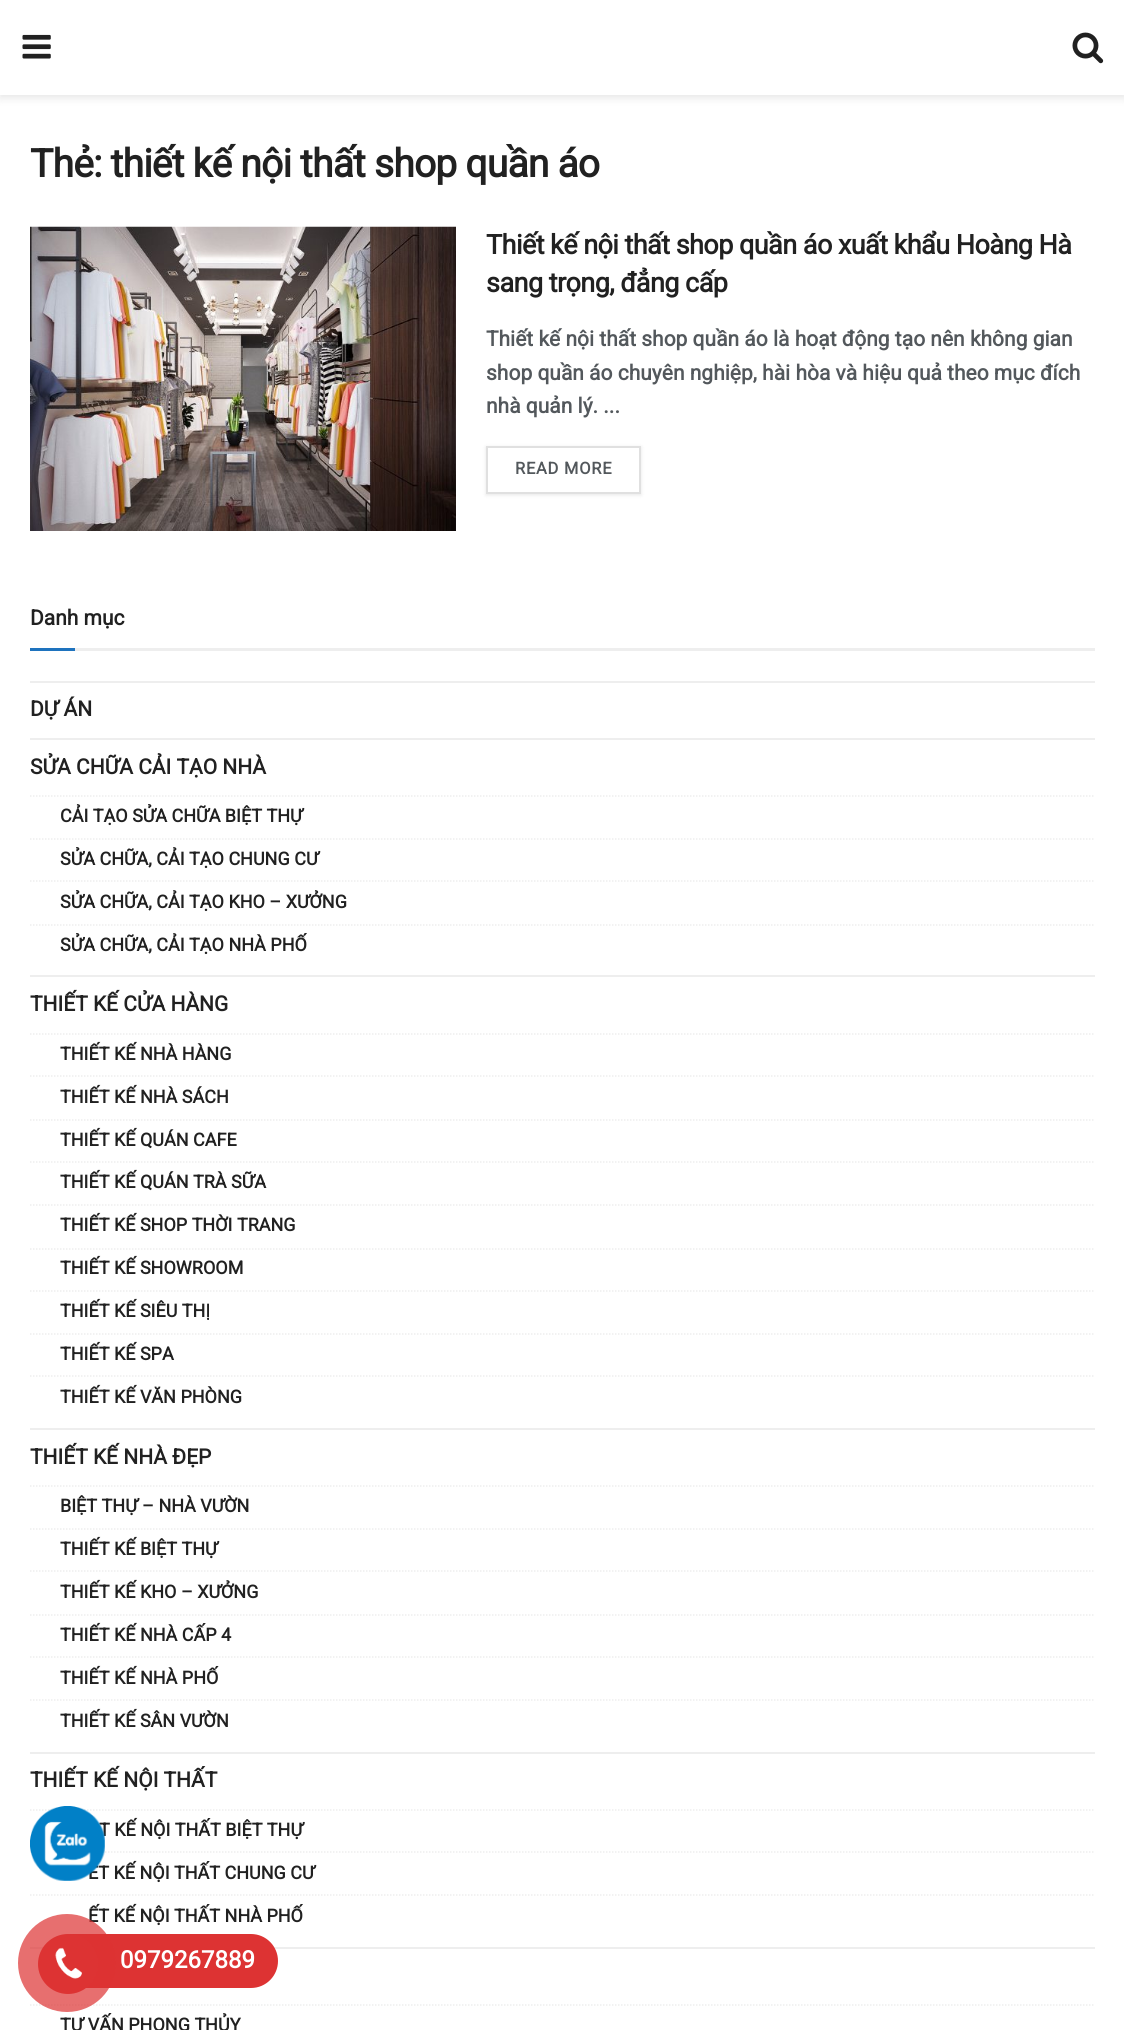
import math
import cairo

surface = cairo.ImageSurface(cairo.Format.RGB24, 1124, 2030)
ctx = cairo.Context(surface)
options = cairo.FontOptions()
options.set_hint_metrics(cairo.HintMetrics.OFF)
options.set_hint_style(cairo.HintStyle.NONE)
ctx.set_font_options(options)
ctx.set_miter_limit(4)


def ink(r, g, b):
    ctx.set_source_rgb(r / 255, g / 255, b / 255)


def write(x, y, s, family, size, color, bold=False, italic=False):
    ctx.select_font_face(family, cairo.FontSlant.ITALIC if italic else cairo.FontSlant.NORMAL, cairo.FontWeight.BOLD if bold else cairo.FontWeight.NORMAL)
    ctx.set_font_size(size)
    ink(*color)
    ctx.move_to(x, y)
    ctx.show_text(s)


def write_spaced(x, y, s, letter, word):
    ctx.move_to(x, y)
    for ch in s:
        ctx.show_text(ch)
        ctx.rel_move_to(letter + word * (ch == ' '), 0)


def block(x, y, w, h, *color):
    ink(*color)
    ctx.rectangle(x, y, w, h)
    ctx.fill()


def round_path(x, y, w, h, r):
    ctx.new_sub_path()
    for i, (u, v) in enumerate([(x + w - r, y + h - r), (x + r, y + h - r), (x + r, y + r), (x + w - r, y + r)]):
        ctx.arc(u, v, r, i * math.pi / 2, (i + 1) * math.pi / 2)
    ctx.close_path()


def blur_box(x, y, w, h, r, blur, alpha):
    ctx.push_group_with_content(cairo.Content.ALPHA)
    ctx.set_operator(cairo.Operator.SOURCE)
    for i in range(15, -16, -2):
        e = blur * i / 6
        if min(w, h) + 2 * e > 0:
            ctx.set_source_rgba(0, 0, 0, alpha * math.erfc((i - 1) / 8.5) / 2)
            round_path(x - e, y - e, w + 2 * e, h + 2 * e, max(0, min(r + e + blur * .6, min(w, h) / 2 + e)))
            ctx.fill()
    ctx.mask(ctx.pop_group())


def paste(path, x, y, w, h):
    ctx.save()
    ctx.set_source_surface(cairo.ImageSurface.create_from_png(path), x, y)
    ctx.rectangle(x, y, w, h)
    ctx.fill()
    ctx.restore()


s1 = dict(family="Roboto", size=21, color=(83, 88, 92), bold=True)
s2 = dict(family="Roboto", size=21, color=(33, 33, 33), bold=True)
s3 = dict(family="Roboto", size=18, color=(33, 33, 33), bold=True)
s4 = dict(family="Roboto", size=24, color=(255, 255, 255), bold=True)

ink(255, 255, 255)
ctx.paint()
ink(0, 0, 0)
blur_box(0, 3, 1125, 95, 0, 4.5, 0.1)
block(0, 0, 1124, 95, 255, 255, 255)
paste("pic1.png", 22, 34, 29, 25)
paste("pic2.png", 1072, 32, 32, 32)
ctx.select_font_face("Roboto", cairo.FontSlant.NORMAL, cairo.FontWeight.BOLD)
ctx.set_font_size(39)
ink(33, 33, 33)
write_spaced(30, 177, "Thẻ: thiết kế nội thất shop quần áo", -0.8, 0)
paste("pic3.png", 30, 226, 426, 305)
ctx.set_font_size(27)
write_spaced(486, 254, "Thiết kế nội thất shop quần áo xuất khẩu Hoàng Hà", -0.55, 0)
write_spaced(486, 292, "sang trọng, đẳng cấp", -0.55, 0)
write(486, 346, "Thiết kế nội thất shop quần áo là hoạt động tạo nên không gian", **s1)
write(486, 380, "shop quần áo chuyên nghiệp, hài hòa và hiệu quả theo mục đích", **s1)
write(486, 413, "nhà quản lý. ...", **s1)
ctx.save()
ctx.set_fill_rule(cairo.FillRule.EVEN_ODD)
ctx.new_path()
ctx.move_to(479, 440)
ctx.line_to(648, 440)
ctx.line_to(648, 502)
ctx.line_to(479, 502)
ctx.close_path()
ctx.move_to(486, 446)
ctx.line_to(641, 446)
ctx.line_to(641, 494)
ctx.line_to(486, 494)
ctx.close_path()
ctx.clip()
ink(0, 0, 0)
blur_box(486, 447, 155, 48, 0, 2, 0.1)
ctx.restore()
ctx.rectangle(487, 447, 153, 46)
ink(224, 224, 224)
ctx.stroke()
ctx.set_font_size(16.5)
ink(83, 88, 92)
write_spaced(515, 474, "READ MORE", 0.75, 0)
block(75, 648, 1020, 3, 238, 238, 238)
write(30, 625, "Danh mục", **s2)
block(30, 648, 45, 3, 30, 115, 190)
block(30, 681, 1065, 2, 238, 238, 238)
write(30, 716, "DỰ ÁN", **s2)
block(30, 738, 1065, 2, 238, 238, 238)
write(30, 774, "SỬA CHỮA CẢI TẠO NHÀ", **s2)
ctx.new_path()
ctx.move_to(30, 796)
ctx.line_to(1095, 796)
ink(238, 238, 238)
ctx.set_line_width(1.5)
ctx.set_dash([1.5, 1.5])
ctx.stroke()
write(60, 822, "CẢI TẠO SỬA CHỮA BIỆT THỰ", **s3)
ctx.new_path()
ctx.move_to(30, 839)
ctx.line_to(1095, 839)
ink(238, 238, 238)
ctx.stroke()
write(60, 865, "SỬA CHỮA, CẢI TẠO CHUNG CƯ", **s3)
ctx.new_path()
ctx.move_to(30, 881)
ctx.line_to(1095, 881)
ink(238, 238, 238)
ctx.stroke()
write(60, 908, "SỬA CHỮA, CẢI TẠO KHO – XƯỞNG", **s3)
ctx.new_path()
ctx.move_to(30, 925)
ctx.line_to(1095, 925)
ink(238, 238, 238)
ctx.stroke()
write(60, 951, "SỬA CHỮA, CẢI TẠO NHÀ PHỐ", **s3)
block(30, 975, 1065, 2, 238, 238, 238)
write(30, 1011, "THIẾT KẾ CỬA HÀNG", **s2)
ctx.new_path()
ctx.move_to(30, 1034)
ctx.line_to(1095, 1034)
ink(238, 238, 238)
ctx.stroke()
write(60, 1060, "THIẾT KẾ NHÀ HÀNG", **s3)
ctx.new_path()
ctx.move_to(30, 1076)
ctx.line_to(1095, 1076)
ink(238, 238, 238)
ctx.stroke()
write(60, 1103, "THIẾT KẾ NHÀ SÁCH", **s3)
ctx.new_path()
ctx.move_to(30, 1120)
ctx.line_to(1095, 1120)
ink(238, 238, 238)
ctx.stroke()
write(60, 1146, "THIẾT KẾ QUÁN CAFE", **s3)
ctx.new_path()
ctx.move_to(30, 1162)
ctx.line_to(1095, 1162)
ink(238, 238, 238)
ctx.stroke()
write(60, 1188, "THIẾT KẾ QUÁN TRÀ SỮA", **s3)
ctx.new_path()
ctx.move_to(30, 1205)
ctx.line_to(1095, 1205)
ink(238, 238, 238)
ctx.stroke()
write(60, 1231, "THIẾT KẾ SHOP THỜI TRANG", **s3)
ctx.new_path()
ctx.move_to(30, 1249)
ctx.line_to(1095, 1249)
ink(238, 238, 238)
ctx.stroke()
write(60, 1274, "THIẾT KẾ SHOWROOM", **s3)
ctx.new_path()
ctx.move_to(30, 1291)
ctx.line_to(1095, 1291)
ink(238, 238, 238)
ctx.stroke()
write(60, 1317, "THIẾT KẾ SIÊU THỊ", **s3)
ctx.new_path()
ctx.move_to(30, 1334)
ctx.line_to(1095, 1334)
ink(238, 238, 238)
ctx.stroke()
write(60, 1360, "THIẾT KẾ SPA", **s3)
ctx.new_path()
ctx.move_to(30, 1376)
ctx.line_to(1095, 1376)
ink(238, 238, 238)
ctx.stroke()
write(60, 1403, "THIẾT KẾ VĂN PHÒNG", **s3)
block(30, 1428, 1065, 2, 238, 238, 238)
write(30, 1464, "THIẾT KẾ NHÀ ĐẸP", **s2)
ctx.new_path()
ctx.move_to(30, 1486)
ctx.line_to(1095, 1486)
ink(238, 238, 238)
ctx.stroke()
write(60, 1512, "BIỆT THỰ – NHÀ VƯỜN", **s3)
ctx.new_path()
ctx.move_to(30, 1529)
ctx.line_to(1095, 1529)
ink(238, 238, 238)
ctx.stroke()
write(60, 1555, "THIẾT KẾ BIỆT THỰ", **s3)
ctx.new_path()
ctx.move_to(30, 1571)
ctx.line_to(1095, 1571)
ink(238, 238, 238)
ctx.stroke()
write(60, 1598, "THIẾT KẾ KHO – XƯỞNG", **s3)
ctx.new_path()
ctx.move_to(30, 1615)
ctx.line_to(1095, 1615)
ink(238, 238, 238)
ctx.stroke()
write(60, 1641, "THIẾT KẾ NHÀ CẤP 4", **s3)
ctx.new_path()
ctx.move_to(30, 1657)
ctx.line_to(1095, 1657)
ink(238, 238, 238)
ctx.stroke()
write(60, 1684, "THIẾT KẾ NHÀ PHỐ", **s3)
ctx.new_path()
ctx.move_to(30, 1700)
ctx.line_to(1095, 1700)
ink(238, 238, 238)
ctx.stroke()
write(60, 1727, "THIẾT KẾ SÂN VƯỜN", **s3)
block(30, 1752, 1065, 2, 238, 238, 238)
write(30, 1787, "THIẾT KẾ NỘI THẤT", **s2)
ctx.new_path()
ctx.move_to(30, 1810)
ctx.line_to(1095, 1810)
ink(238, 238, 238)
ctx.stroke()
write(99, 1836, "T KẾ NỘI THẤT BIỆT THỰ", **s3)
ctx.new_path()
ctx.move_to(30, 1852)
ctx.line_to(1095, 1852)
ink(238, 238, 238)
ctx.stroke()
write(88, 1879, "ẾT KẾ NỘI THẤT CHUNG CƯ", **s3)
ctx.new_path()
ctx.move_to(30, 1895)
ctx.line_to(1095, 1895)
ink(238, 238, 238)
ctx.stroke()
write(88, 1922, "ẾT KẾ NỘI THẤT NHÀ PHỐ", **s3)
block(30, 1947, 1065, 2, 238, 238, 238)
ctx.new_path()
ctx.move_to(30, 2005)
ctx.line_to(1095, 2005)
ctx.stroke()
write(60, 2031, "TƯ VẤN PHONG THỦY", **s3)
paste("pic4.png", 30, 1806, 75, 75)
ink(221, 51, 51)
round_path(45, 1934, 233, 54, 27)
ctx.fill()
ctx.set_source_rgba(0.867, 0.2, 0.2, 0.7)
ctx.arc(67, 1963, 49, 0, 2 * math.pi)
ctx.fill()
ink(221, 51, 51)
ctx.arc(68, 1964, 30, 0, 2 * math.pi)
ctx.fill()
paste("pic5.png", 55, 1947, 27, 32)
write(120, 1968, "0979267889", **s4)
surface.write_to_png("screenshot.png")
